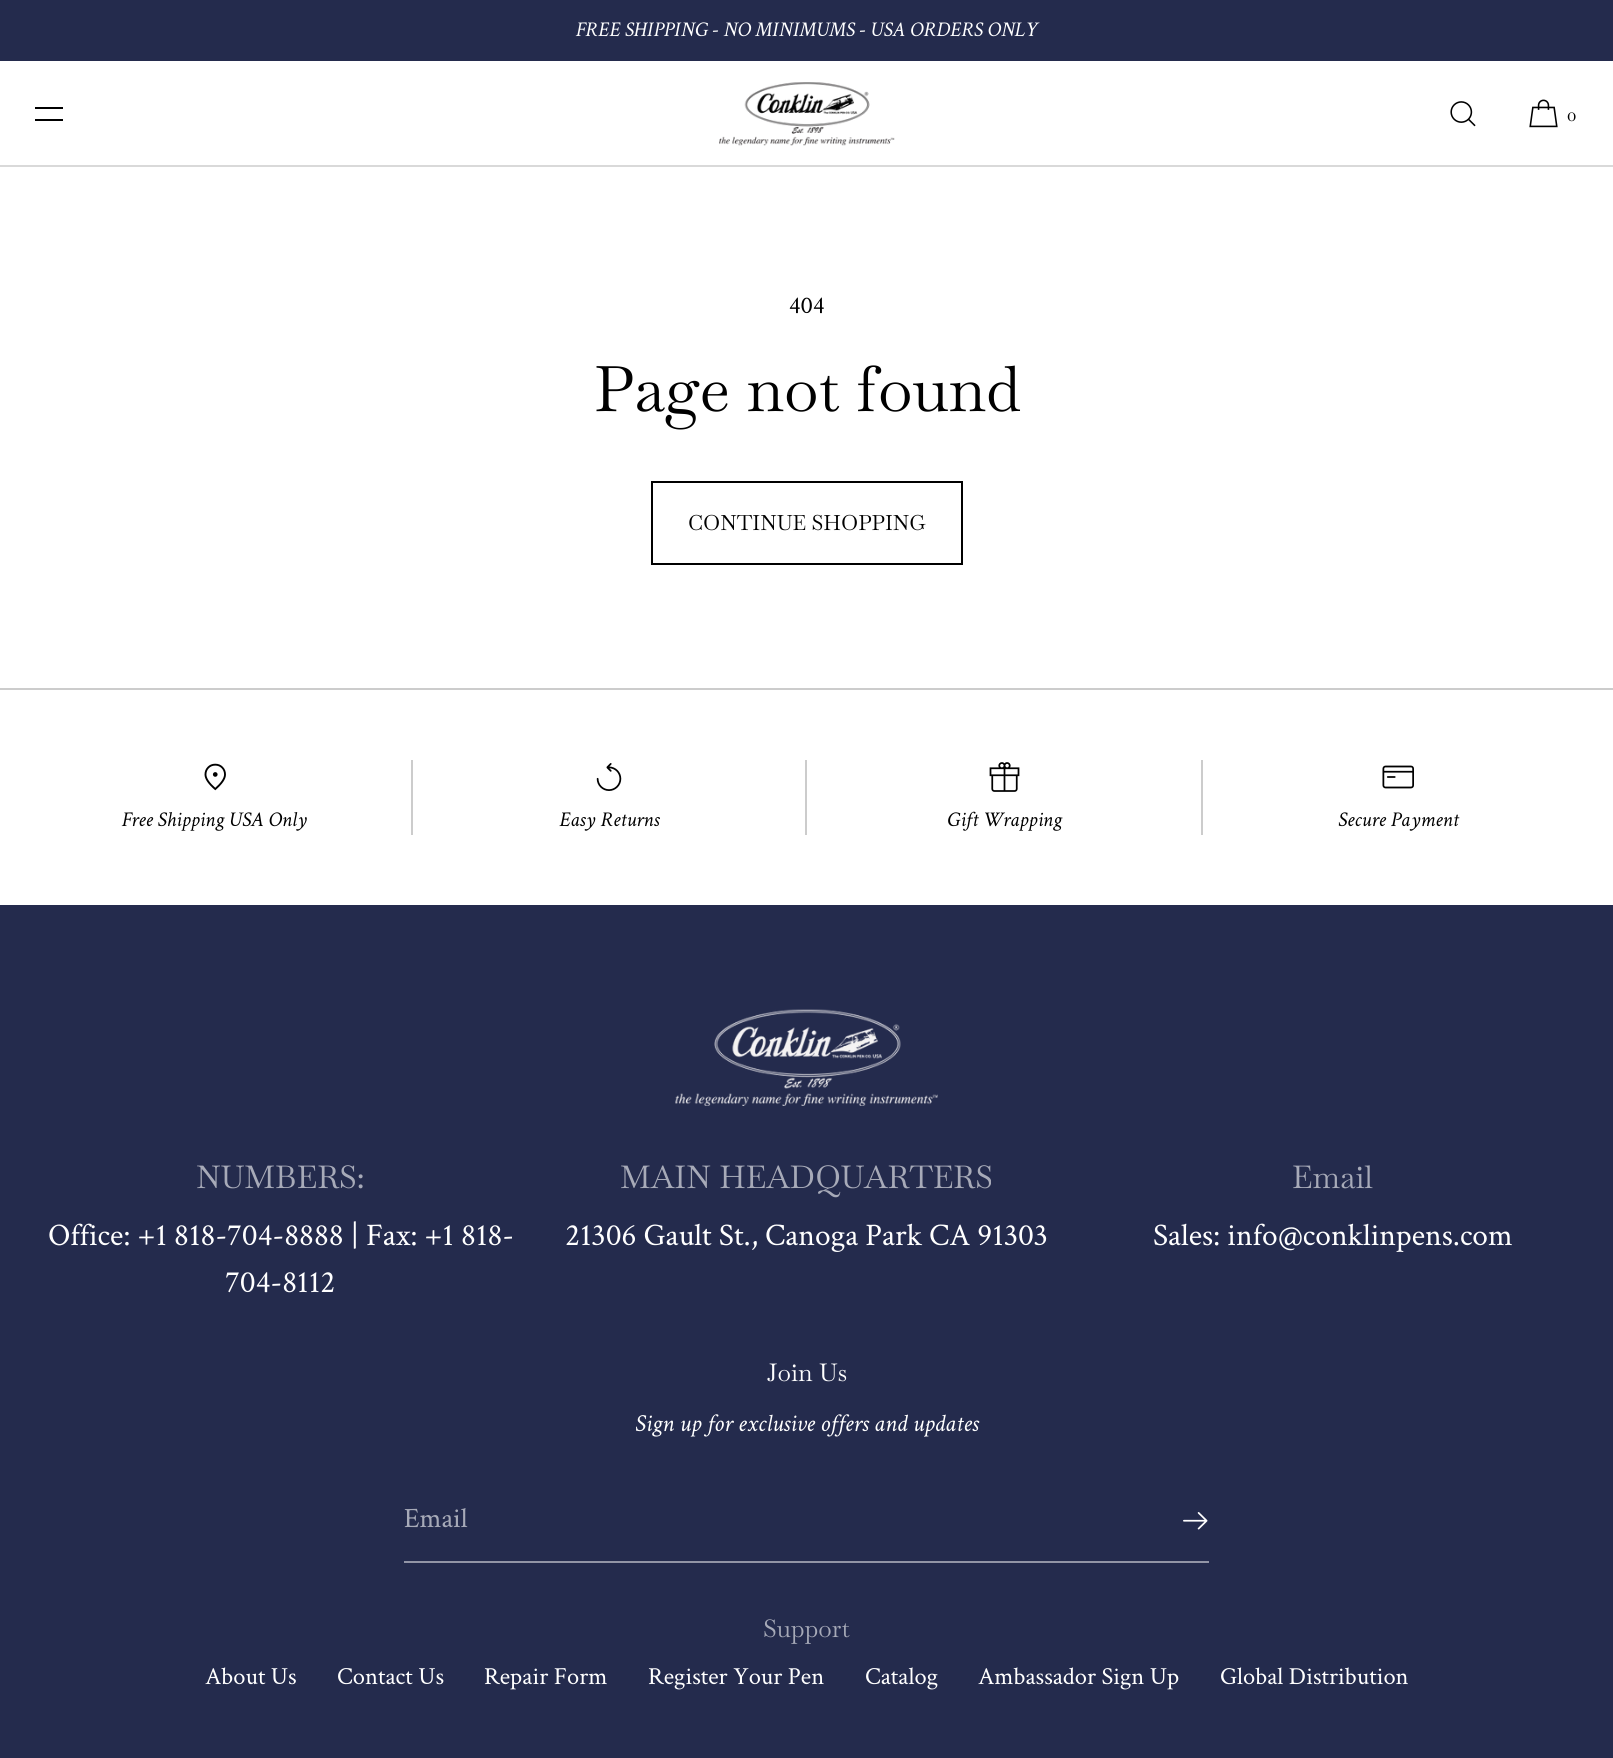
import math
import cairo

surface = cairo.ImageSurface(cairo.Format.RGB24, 1613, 1758)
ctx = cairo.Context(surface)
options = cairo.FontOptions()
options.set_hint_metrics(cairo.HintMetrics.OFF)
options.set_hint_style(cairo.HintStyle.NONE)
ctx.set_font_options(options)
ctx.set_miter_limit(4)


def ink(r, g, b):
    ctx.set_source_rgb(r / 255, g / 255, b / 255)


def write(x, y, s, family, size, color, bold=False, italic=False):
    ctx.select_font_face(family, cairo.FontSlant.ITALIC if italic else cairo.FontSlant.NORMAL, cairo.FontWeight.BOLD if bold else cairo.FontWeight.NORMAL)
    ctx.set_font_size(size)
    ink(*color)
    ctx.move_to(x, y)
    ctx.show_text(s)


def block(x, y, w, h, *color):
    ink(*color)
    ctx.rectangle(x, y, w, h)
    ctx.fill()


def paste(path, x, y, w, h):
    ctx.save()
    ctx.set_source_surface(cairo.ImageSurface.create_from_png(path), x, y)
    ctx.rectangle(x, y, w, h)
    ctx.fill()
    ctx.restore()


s1 = dict(family="Crimson Text", size=21, color=(255, 255, 255), italic=True)
s2 = dict(family="Baskervville", size=19, color=(0, 0, 0))
s3 = dict(family="Crimson Text", size=24.5, color=(0, 0, 0))
s4 = dict(family="Baskervville", size=63, color=(0, 0, 0))
s5 = dict(family="Baskervville", size=21, color=(0, 0, 0))
s6 = dict(family="Crimson Text", size=21, color=(0, 0, 0), italic=True)
s7 = dict(family="Baskervville", size=31.5, color=(167, 170, 184))
s8 = dict(family="Crimson Text", size=31.5, color=(255, 255, 255))
s9 = dict(family="Baskervville", size=24.5, color=(255, 255, 255))
s10 = dict(family="Crimson Text", size=24.5, color=(255, 255, 255), italic=True)
s11 = dict(family="Crimson Text", size=28, color=(167, 170, 184))
s12 = dict(family="Baskervville", size=24.5, color=(167, 170, 184))
s13 = dict(family="Crimson Text", size=24.5, color=(255, 255, 255))

ink(255, 255, 255)
ctx.paint()
block(0, 0, 1613, 61, 36, 43, 77)
write(576, 36, "FREE SHIPPING - NO MINIMUMS - USA ORDERS ONLY", **s1)
block(0, 165, 1613, 2, 217, 217, 217)
block(35, 107, 28, 2, 0, 0, 0)
block(35, 119, 28, 2, 0, 0, 0)
paste("pic1.png", 719, 82, 176, 64)
paste("pic2.png", 1450, 101, 26, 26)
paste("pic3.png", 1529, 99, 29, 29)
write(1567, 121, "0", **s2)
write(789, 313, "404", **s3)
write(594, 411, "Page not found", **s4)
ctx.rectangle(652, 482, 310, 82)
ctx.stroke()
write(688, 530, "CONTINUE SHOPPING", **s5)
block(0, 688, 1613, 2, 204, 204, 204)
paste("pic4.png", 204, 763, 22, 28)
block(411, 760, 2, 75, 204, 204, 204)
write(122, 826, "Free Shipping USA Only", **s6)
paste("pic5.png", 596, 763, 26, 28)
block(805, 760, 2, 75, 204, 204, 204)
write(559, 826, "Easy Returns", **s6)
paste("pic6.png", 989, 762, 31, 30)
block(1201, 760, 2, 75, 204, 204, 204)
write(947, 826, "Gift Wrapping", **s6)
paste("pic7.png", 1382, 765, 32, 24)
write(1338, 826, "Secure Payment", **s6)
block(0, 905, 1613, 853, 36, 43, 77)
paste("pic8.png", 675, 1009, 263, 97)
write(196, 1188, "NUMBERS:", **s7)
write(48, 1245, "Office: +1 818-704-8888 | Fax: +1 818-", **s8)
write(225, 1292, "704-8112", **s8)
write(620, 1188, "MAIN HEADQUARTERS", **s7)
write(565, 1245, "21306 Gault St., Canoga Park CA 91303", **s8)
write(1292, 1188, "Email", **s7)
write(1153, 1245, "Sales: info@conklinpens.com", **s8)
write(767, 1381, "Join Us", **s9)
write(635, 1431, "Sign up for exclusive offers and updates", **s10)
block(404, 1561, 805, 2, 146, 149, 166)
write(404, 1527, "Email", **s11)
paste("pic9.png", 1183, 1512, 25, 18)
write(763, 1637, "Support", **s12)
write(205, 1684, "About Us", **s13)
write(337, 1684, "Contact Us", **s13)
write(484, 1684, "Repair Form", **s13)
write(648, 1684, "Register Your Pen", **s13)
write(865, 1684, "Catalog", **s13)
write(978, 1684, "Ambassador Sign Up", **s13)
write(1220, 1684, "Global Distribution", **s13)
surface.write_to_png("screenshot.png")
